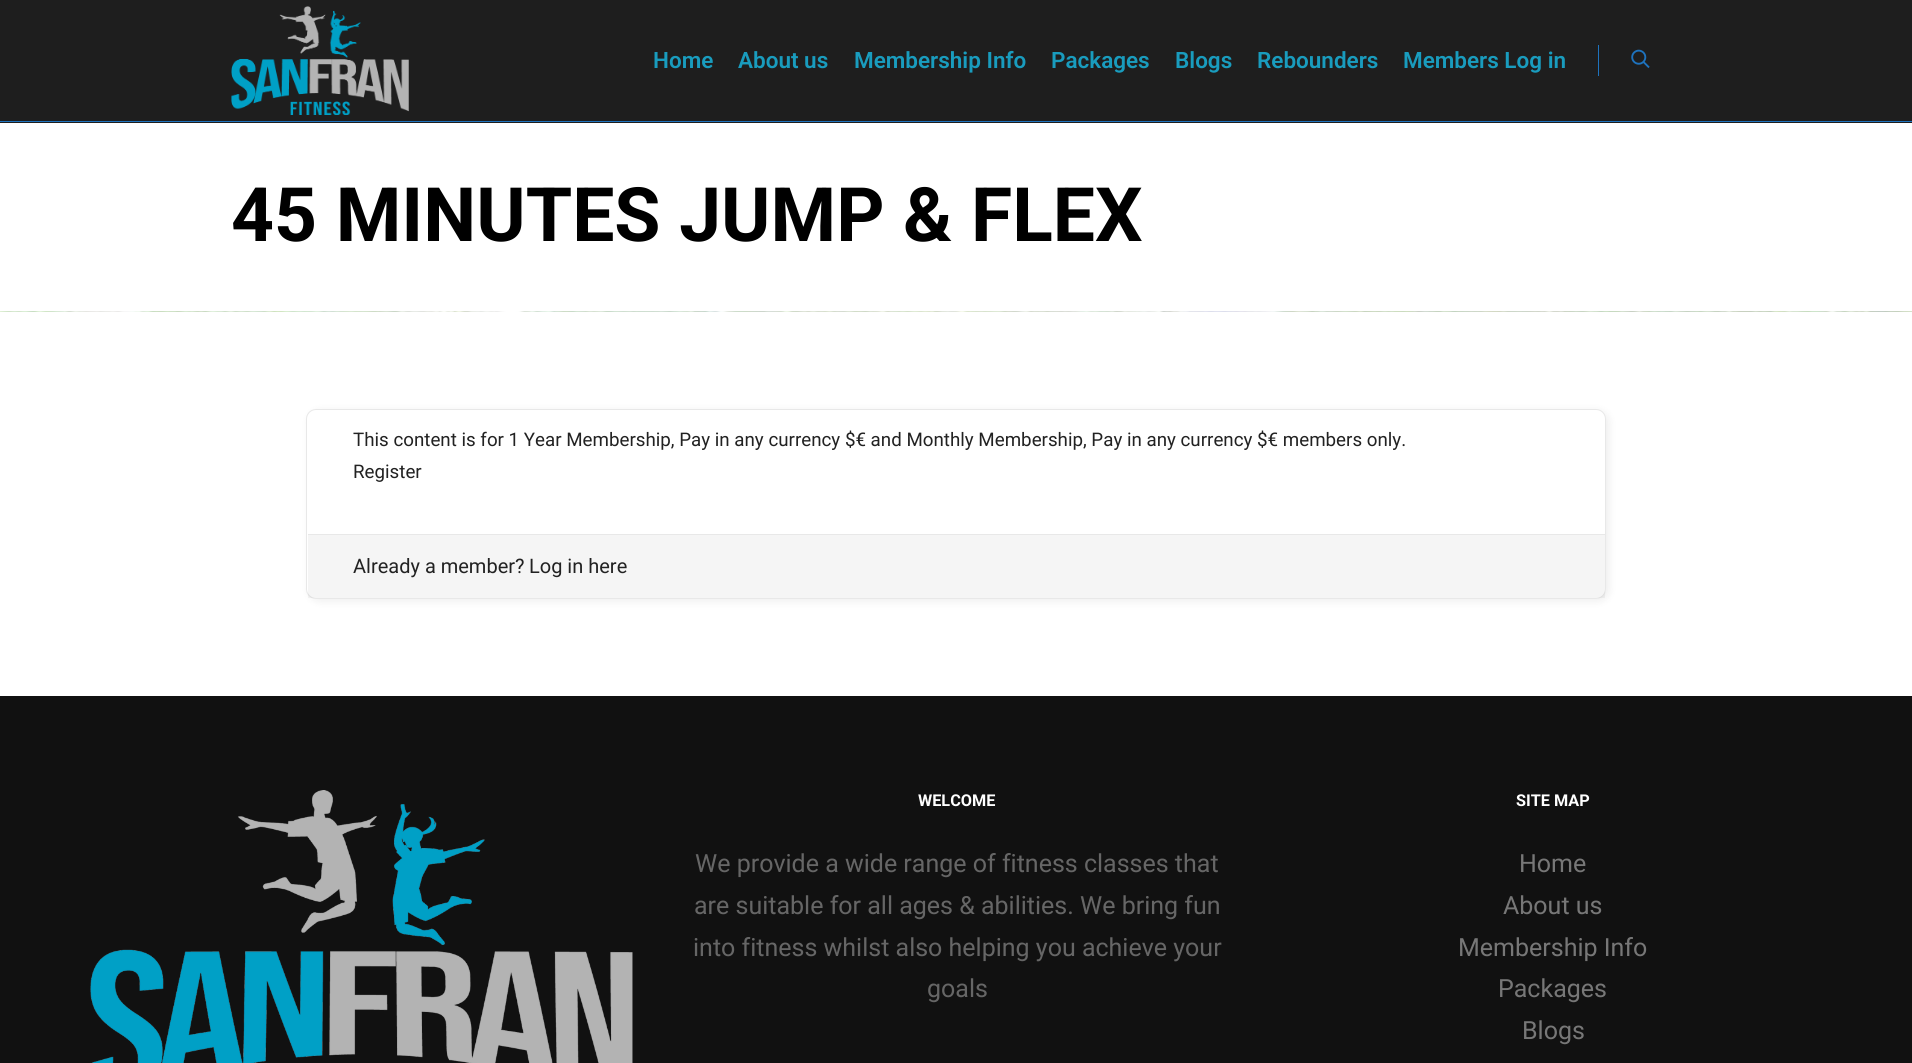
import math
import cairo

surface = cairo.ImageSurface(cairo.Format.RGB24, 1912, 1063)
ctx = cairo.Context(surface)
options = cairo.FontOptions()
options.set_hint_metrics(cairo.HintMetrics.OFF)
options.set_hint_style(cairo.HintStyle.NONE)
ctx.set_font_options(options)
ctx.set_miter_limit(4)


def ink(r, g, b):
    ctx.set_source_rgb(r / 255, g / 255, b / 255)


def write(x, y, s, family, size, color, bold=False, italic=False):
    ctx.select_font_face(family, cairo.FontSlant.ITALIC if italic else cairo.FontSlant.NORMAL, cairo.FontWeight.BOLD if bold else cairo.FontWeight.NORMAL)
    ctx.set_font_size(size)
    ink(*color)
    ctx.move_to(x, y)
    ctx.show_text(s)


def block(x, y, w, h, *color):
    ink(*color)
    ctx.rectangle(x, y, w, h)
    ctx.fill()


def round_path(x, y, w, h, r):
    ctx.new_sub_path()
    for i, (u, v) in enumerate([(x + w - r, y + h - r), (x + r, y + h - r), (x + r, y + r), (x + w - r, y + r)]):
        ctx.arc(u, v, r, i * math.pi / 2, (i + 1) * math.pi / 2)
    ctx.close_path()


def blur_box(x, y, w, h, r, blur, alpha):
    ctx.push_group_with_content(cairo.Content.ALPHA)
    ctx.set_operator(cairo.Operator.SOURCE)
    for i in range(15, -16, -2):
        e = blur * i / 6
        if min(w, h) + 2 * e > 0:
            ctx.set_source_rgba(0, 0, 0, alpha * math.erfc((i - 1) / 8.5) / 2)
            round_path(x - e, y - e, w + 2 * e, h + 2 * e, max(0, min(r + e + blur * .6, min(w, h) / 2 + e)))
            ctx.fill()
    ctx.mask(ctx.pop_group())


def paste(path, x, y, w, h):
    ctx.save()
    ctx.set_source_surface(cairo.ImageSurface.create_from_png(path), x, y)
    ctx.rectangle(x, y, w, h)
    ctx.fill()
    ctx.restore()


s1 = dict(family="Roboto SemiBold", size=22.5, color=(25, 156, 190))
s2 = dict(family="Roboto", size=75, color=(0, 0, 0), bold=True)
s3 = dict(family="Roboto", size=18.75, color=(34, 34, 34))
s4 = dict(family="Roboto", size=20, color=(34, 34, 34))
s5 = dict(family="Roboto", size=16.25, color=(255, 255, 255), bold=True)
s6 = dict(family="Roboto", size=25, color=(102, 102, 102))
s7 = dict(family="Roboto", size=25, color=(119, 119, 119))

ink(255, 255, 255)
ctx.paint()
block(0, 0, 1912, 123, 30, 30, 30)
block(0, 121, 1912, 1, 30, 115, 190)
paste("pic1.png", 231, 6, 178, 109)
write(653, 68, "Home", **s1)
write(738, 68, "About us", **s1)
write(854, 68, "Membership Info", **s1)
write(1051, 68, "Packages", **s1)
write(1175, 68, "Blogs", **s1)
write(1257, 68, "Rebounders", **s1)
write(1403, 68, "Members Log in", **s1)
block(1598, 45, 1, 31, 30, 115, 190)
paste("pic2.png", 1631, 49, 19, 19)
paste("pic3.png", 0, 311, 1912, 1)
write(231, 241, "45 MINUTES JUMP & FLEX", **s2)
ink(0, 0, 0)
blur_box(309, 411, 1300, 190, 10, 4.5, 0.07)
ink(255, 255, 255)
round_path(306.5, 409.5, 1299, 189, 9.5)
ctx.fill_preserve()
ink(232, 232, 232)
ctx.set_line_width(1)
ctx.stroke()
write(353, 446, "This content is for 1 Year Membership, Pay in any currency $€ and Monthly Membership, Pay in any currency $€ members only.", **s3)
write(353, 478, "Register", **s3)
ctx.set_source_rgba(0, 0, 0, 0.04)
ctx.rectangle(308, 535, 1297, 63)
ctx.fill()
block(308, 534, 1297, 1, 232, 232, 232)
write(353, 573, "Already a member?", **s4)
write(529, 573, "Log in here", **s4)
block(0, 696, 1912, 367, 17, 17, 17)
paste("pic4.png", 90, 790, 543, 273)
write(918, 806, "WELCOME", **s5)
write(695, 872, "We provide a wide range of fitness classes that", **s6)
write(694, 914, "are suitable for all ages & abilities. We bring fun", **s6)
write(693, 956, "into fitness whilst also helping you achieve your", **s6)
write(927, 997, "goals", **s6)
write(1516, 806, "SITE MAP", **s5)
write(1519, 872, "Home", **s7)
write(1503, 914, "About us", **s7)
write(1458, 956, "Membership Info", **s7)
write(1498, 997, "Packages", **s7)
write(1522, 1039, "Blogs", **s7)
surface.write_to_png("screenshot.png")
